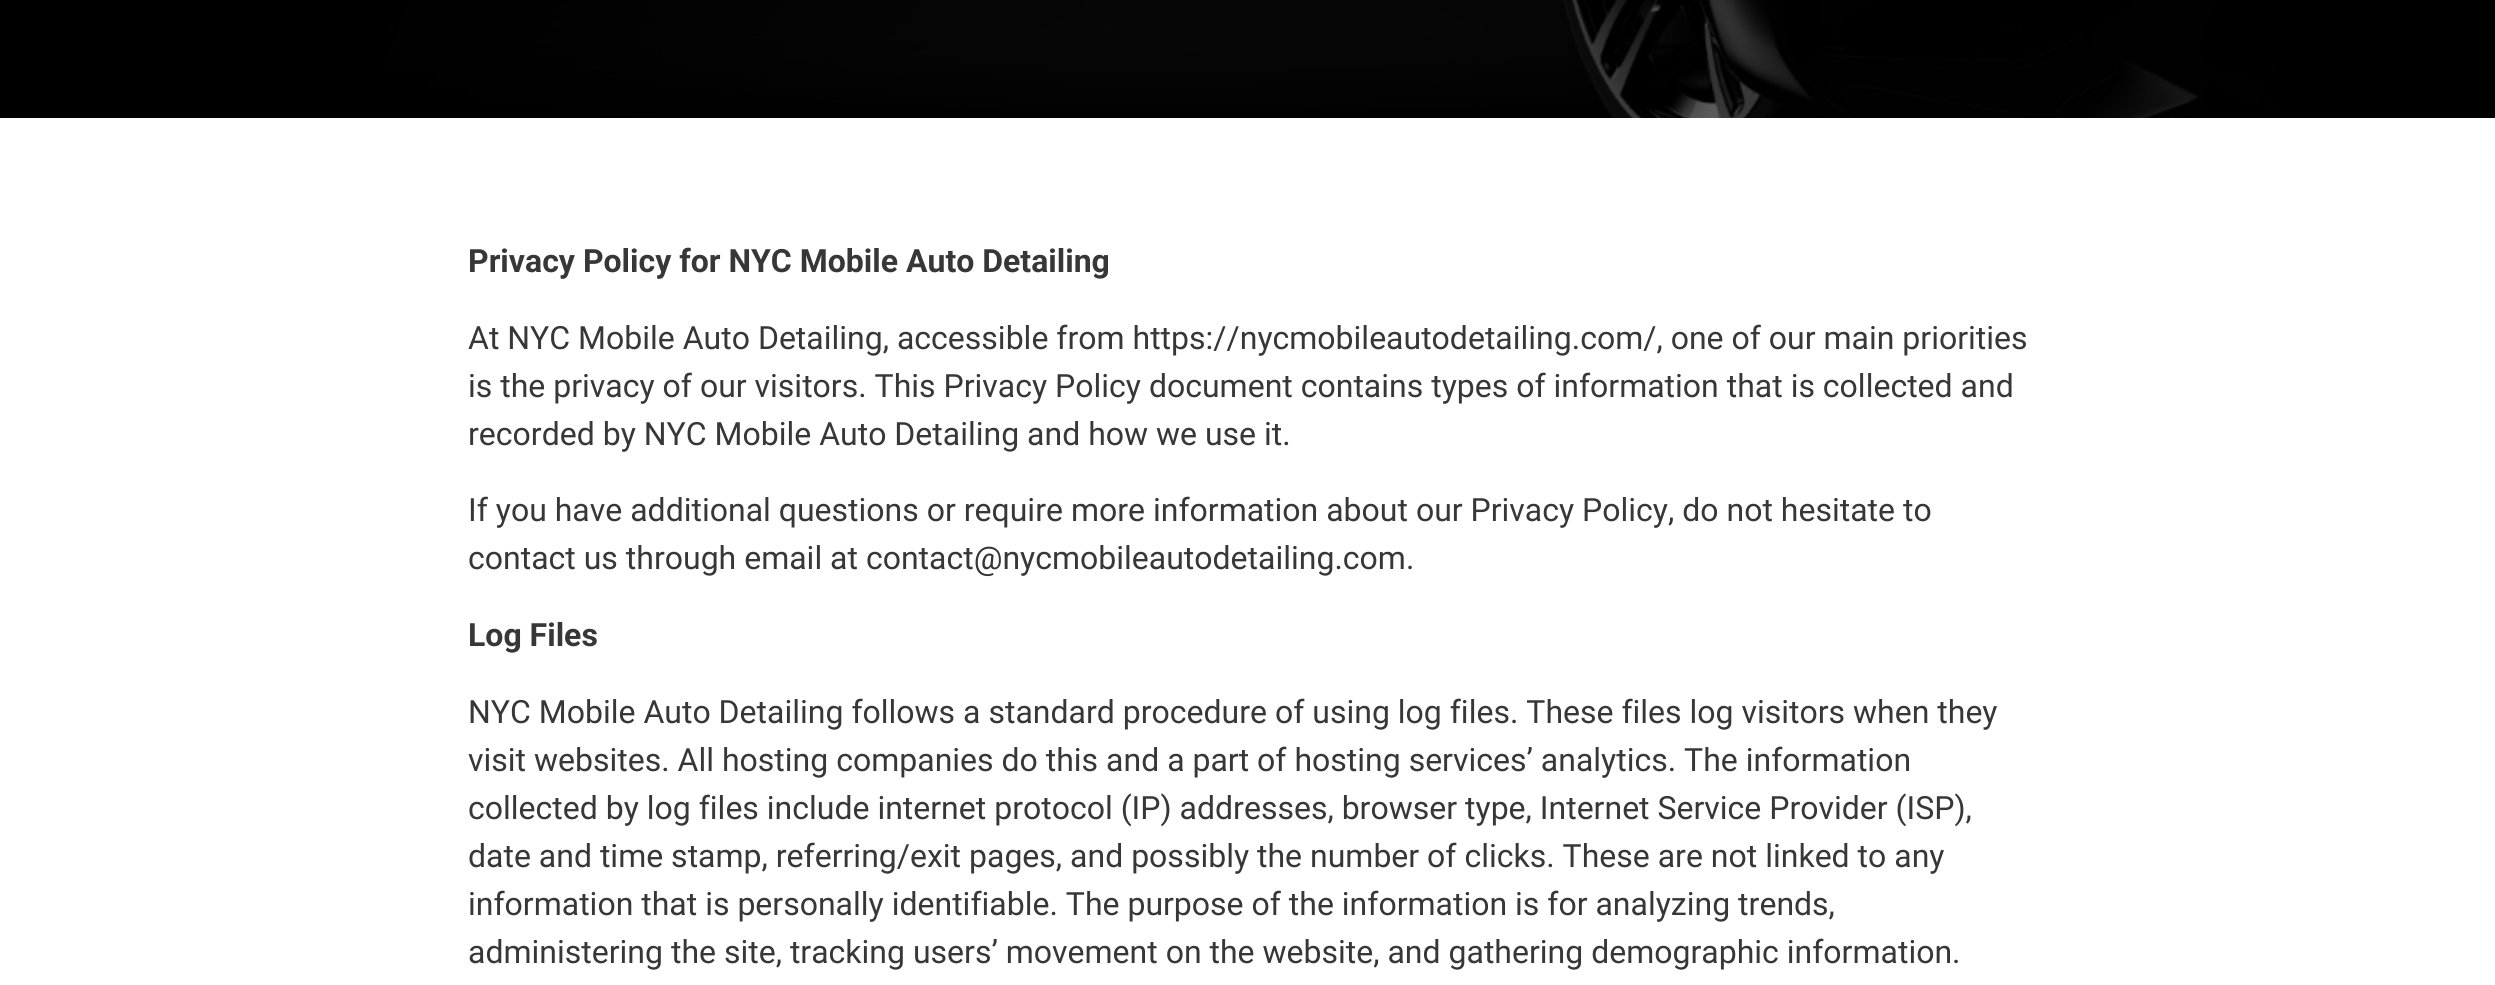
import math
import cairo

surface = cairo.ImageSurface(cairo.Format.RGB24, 2495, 985)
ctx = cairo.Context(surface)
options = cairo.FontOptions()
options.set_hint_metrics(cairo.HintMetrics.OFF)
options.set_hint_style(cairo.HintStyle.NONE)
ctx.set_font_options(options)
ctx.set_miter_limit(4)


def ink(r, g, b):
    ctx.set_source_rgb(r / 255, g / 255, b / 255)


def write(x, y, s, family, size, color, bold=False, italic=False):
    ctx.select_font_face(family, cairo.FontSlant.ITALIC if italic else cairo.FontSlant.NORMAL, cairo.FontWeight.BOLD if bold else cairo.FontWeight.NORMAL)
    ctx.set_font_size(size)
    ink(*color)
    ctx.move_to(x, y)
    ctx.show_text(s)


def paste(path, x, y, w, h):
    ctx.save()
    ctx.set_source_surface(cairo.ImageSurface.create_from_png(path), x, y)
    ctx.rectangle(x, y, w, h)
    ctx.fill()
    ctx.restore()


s1 = dict(family="Roboto", size=32, color=(55, 55, 55), bold=True)
s2 = dict(family="Roboto", size=32, color=(55, 55, 55))

ink(255, 255, 255)
ctx.paint()
paste("pic1.png", 0, 0, 2495, 118)
write(468, 272, "Privacy Policy for NYC Mobile Auto Detailing", **s1)
write(468, 349, "At NYC Mobile Auto Detailing, accessible from https://nycmobileautodetailing.com/, one of our main priorities", **s2)
write(468, 397, "is the privacy of our visitors. This Privacy Policy document contains types of information that is collected and", **s2)
write(468, 445, "recorded by NYC Mobile Auto Detailing and how we use it.", **s2)
write(468, 521, "If you have additional questions or require more information about our Privacy Policy, do not hesitate to", **s2)
write(468, 569, "contact us through email at contact@nycmobileautodetailing.com.", **s2)
write(468, 646, "Log Files", **s1)
write(468, 723, "NYC Mobile Auto Detailing follows a standard procedure of using log files. These files log visitors when they", **s2)
write(468, 771, "visit websites. All hosting companies do this and a part of hosting services’ analytics. The information", **s2)
write(468, 819, "collected by log files include internet protocol (IP) addresses, browser type, Internet Service Provider (ISP),", **s2)
write(468, 867, "date and time stamp, referring/exit pages, and possibly the number of clicks. These are not linked to any", **s2)
write(468, 915, "information that is personally identifiable. The purpose of the information is for analyzing trends,", **s2)
write(468, 963, "administering the site, tracking users’ movement on the website, and gathering demographic information.", **s2)
surface.write_to_png("screenshot.png")
